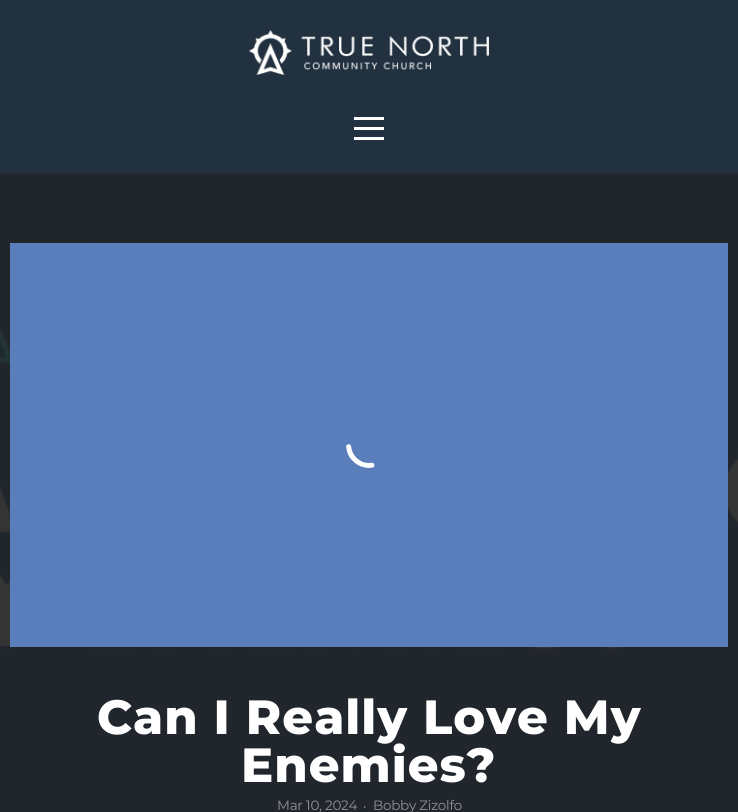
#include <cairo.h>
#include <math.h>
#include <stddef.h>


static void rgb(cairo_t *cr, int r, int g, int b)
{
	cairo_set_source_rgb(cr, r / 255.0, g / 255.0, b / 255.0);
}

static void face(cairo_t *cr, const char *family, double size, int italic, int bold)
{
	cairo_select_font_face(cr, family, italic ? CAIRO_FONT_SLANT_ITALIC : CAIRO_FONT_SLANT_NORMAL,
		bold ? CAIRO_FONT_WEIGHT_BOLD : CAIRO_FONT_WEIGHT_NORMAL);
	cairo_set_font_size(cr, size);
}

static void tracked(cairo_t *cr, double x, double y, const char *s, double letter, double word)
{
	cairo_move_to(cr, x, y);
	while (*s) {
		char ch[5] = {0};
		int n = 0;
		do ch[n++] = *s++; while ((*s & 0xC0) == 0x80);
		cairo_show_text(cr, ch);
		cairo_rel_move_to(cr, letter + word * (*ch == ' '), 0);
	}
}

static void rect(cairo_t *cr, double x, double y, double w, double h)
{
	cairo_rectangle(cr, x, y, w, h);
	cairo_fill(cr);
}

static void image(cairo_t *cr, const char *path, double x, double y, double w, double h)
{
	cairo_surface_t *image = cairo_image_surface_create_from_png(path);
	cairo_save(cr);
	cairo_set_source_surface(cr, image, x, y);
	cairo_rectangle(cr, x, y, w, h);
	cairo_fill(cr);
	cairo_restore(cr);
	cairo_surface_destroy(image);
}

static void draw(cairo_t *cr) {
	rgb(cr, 34, 49, 63);
	cairo_paint(cr);
	image(cr, "image0.png", 249, 30, 240, 45);
	rgb(cr, 255, 255, 255);
	rect(cr, 354, 117, 30, 3);
	rect(cr, 354, 127, 30, 3);
	rect(cr, 354, 137, 30, 3);
	image(cr, "image1.png", 0, 173, 738, 639);
	image(cr, "image2.png", 10, 243, 718, 404);
	face(cr, "Montserrat ExtraBold", 48, 0, 0);
	tracked(cr, 97, 734, "Can I Really Love My", 1, 0);
	tracked(cr, 241, 782, "Enemies?", 1, 0);
	face(cr, "Montserrat", 13.5, 0, 0);
	rgb(cr, 144, 147, 150);
	tracked(cr, 277, 810, "Mar 10, 2024", -0.25, 0);
	face(cr, "Montserrat", 11, 0, 0);
	tracked(cr, 363, 810, "•", -0.25, 0);
	face(cr, "Montserrat", 13.5, 0, 0);
	tracked(cr, 373, 810, "Bobby Zizolfo", -0.25, 0);
}

int main(void) {
	cairo_surface_t *surface = cairo_image_surface_create(CAIRO_FORMAT_RGB24, 738, 812);
	cairo_t *cr = cairo_create(surface);
	cairo_font_options_t *options = cairo_font_options_create();
	cairo_font_options_set_hint_metrics(options, CAIRO_HINT_METRICS_OFF);
	cairo_font_options_set_hint_style(options, CAIRO_HINT_STYLE_NONE);
	cairo_set_font_options(cr, options);
	cairo_set_miter_limit(cr, 4);
	draw(cr);
	cairo_surface_write_to_png(surface, "render.png");
	cairo_font_options_destroy(options);
	cairo_destroy(cr);
	cairo_surface_destroy(surface);
	return 0;
}
